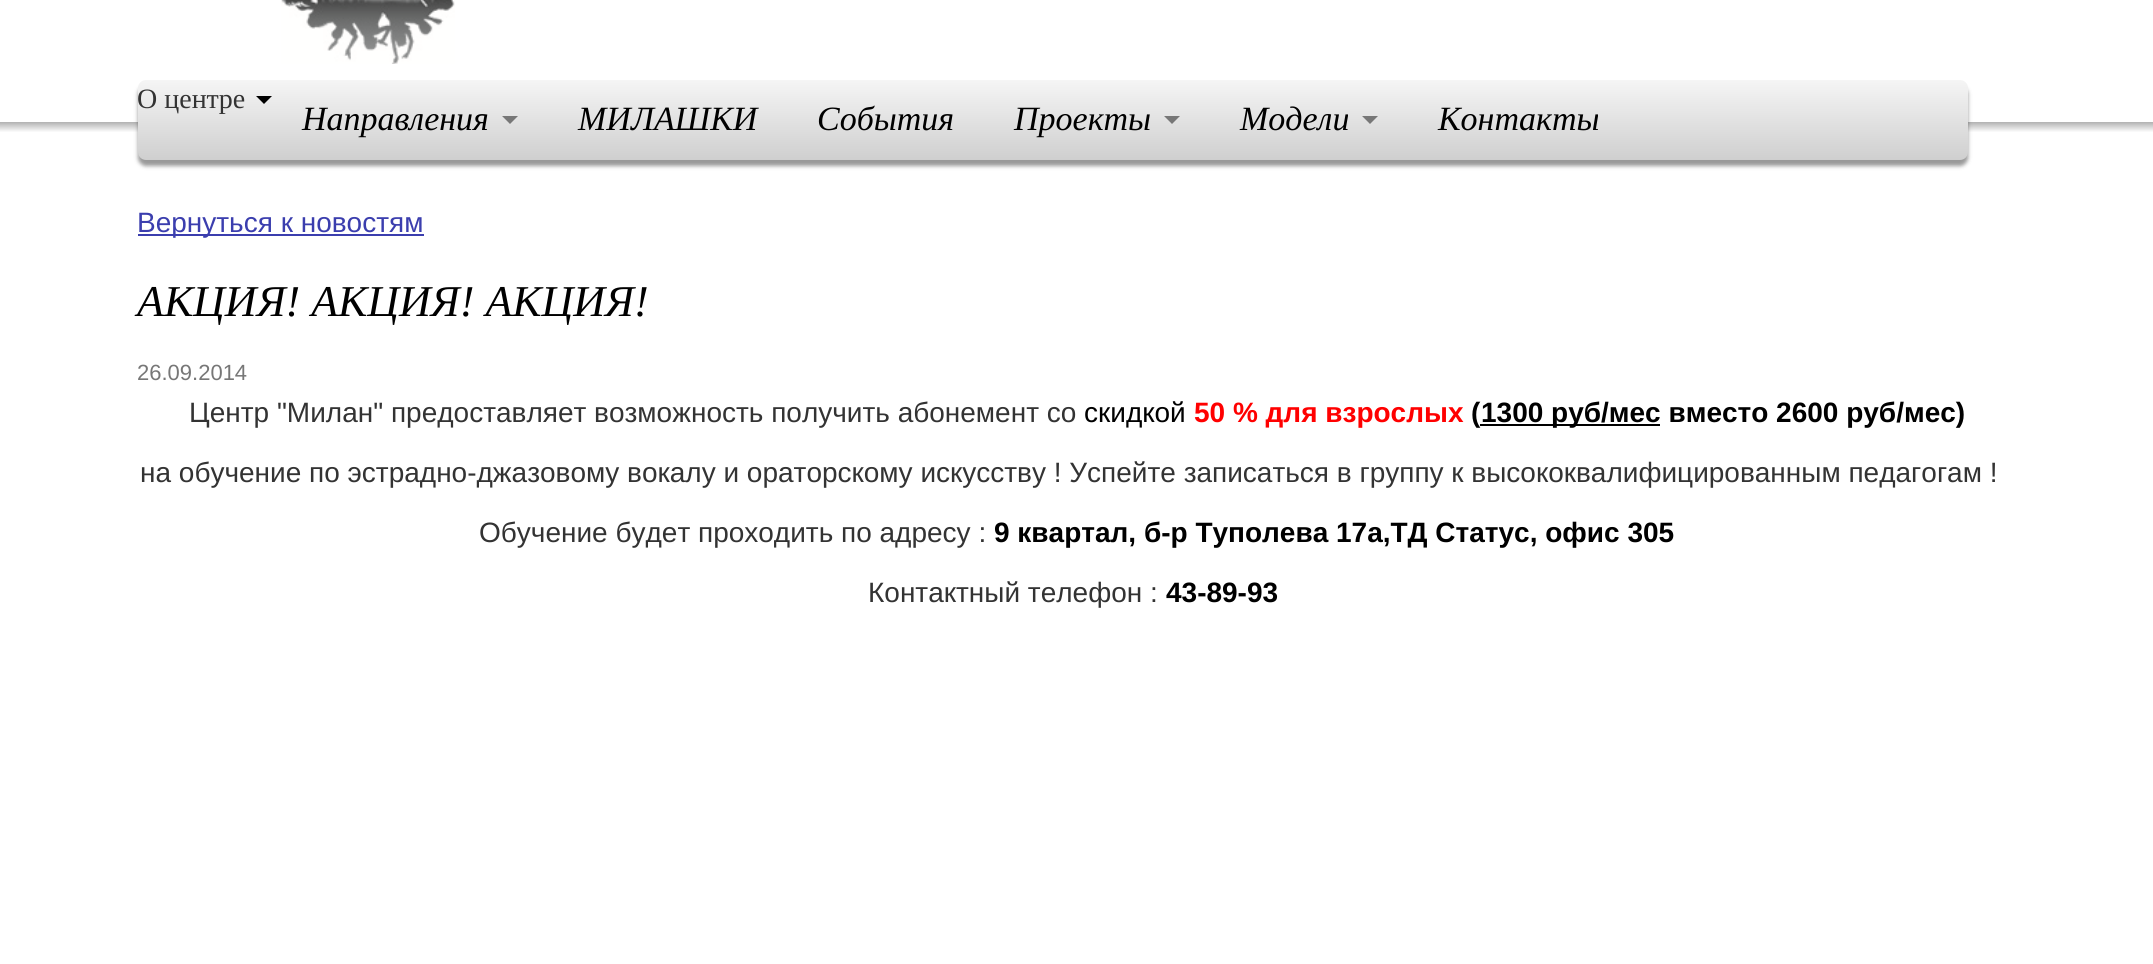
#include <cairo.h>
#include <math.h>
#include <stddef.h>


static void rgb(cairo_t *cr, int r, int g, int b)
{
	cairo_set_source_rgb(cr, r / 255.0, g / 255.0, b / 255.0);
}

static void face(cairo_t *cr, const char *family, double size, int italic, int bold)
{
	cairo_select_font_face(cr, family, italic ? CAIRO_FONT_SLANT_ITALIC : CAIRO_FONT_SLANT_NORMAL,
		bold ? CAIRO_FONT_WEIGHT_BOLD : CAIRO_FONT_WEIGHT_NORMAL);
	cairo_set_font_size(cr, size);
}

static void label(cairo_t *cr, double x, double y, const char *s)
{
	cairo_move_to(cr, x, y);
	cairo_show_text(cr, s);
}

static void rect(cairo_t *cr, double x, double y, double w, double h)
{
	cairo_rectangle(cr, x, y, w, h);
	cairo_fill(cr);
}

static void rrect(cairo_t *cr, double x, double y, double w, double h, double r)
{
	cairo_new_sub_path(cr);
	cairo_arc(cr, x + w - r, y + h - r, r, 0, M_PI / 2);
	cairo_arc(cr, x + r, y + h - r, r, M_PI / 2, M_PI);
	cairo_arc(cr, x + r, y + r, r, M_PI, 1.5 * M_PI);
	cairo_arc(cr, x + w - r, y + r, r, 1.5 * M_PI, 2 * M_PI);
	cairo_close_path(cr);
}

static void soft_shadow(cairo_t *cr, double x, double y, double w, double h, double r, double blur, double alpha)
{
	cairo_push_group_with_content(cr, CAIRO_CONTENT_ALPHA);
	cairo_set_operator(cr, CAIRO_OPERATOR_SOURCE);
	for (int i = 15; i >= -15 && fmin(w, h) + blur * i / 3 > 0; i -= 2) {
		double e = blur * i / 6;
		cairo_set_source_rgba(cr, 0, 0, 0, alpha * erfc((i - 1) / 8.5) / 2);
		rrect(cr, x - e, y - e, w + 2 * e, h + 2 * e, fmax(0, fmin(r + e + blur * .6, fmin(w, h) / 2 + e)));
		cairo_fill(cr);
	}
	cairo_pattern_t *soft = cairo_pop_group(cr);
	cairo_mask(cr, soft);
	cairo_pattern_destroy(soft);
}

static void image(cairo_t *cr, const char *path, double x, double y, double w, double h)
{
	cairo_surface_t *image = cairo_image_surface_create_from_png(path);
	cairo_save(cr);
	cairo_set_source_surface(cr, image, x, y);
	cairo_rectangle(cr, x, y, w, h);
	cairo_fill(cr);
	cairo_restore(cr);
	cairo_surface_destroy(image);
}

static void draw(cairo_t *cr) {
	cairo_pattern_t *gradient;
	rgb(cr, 255, 255, 255);
	cairo_paint(cr);
	image(cr, "image0.png", 281, 0, 174, 64);
	gradient = cairo_pattern_create_linear(1077, 122, 1077, 132);
	cairo_pattern_add_color_stop_rgba(gradient, 0, 0.694, 0.694, 0.694, 1);
	cairo_pattern_add_color_stop_rgba(gradient, 1, 0.992, 0.992, 0.992, 1);
	cairo_set_source(cr, gradient);
	cairo_pattern_destroy(gradient);
	rect(cr, 0, 122, 2153, 10);
	rgb(cr, 50, 50, 50);
	soft_shadow(cr, 138, 86, 1830, 80, 8, 2, 0.5);
	gradient = cairo_pattern_create_linear(1053, 80, 1053, 160);
	cairo_pattern_add_color_stop_rgba(gradient, 0, 0.961, 0.961, 0.961, 1);
	cairo_pattern_add_color_stop_rgba(gradient, 1, 0.812, 0.812, 0.812, 1);
	cairo_set_source(cr, gradient);
	cairo_pattern_destroy(gradient);
	rrect(cr, 138, 80, 1830, 80, 8);
	cairo_fill(cr);
	face(cr, "Liberation Serif", 28, 0, 0);
	rgb(cr, 51, 51, 51);
	label(cr, 137, 108, "О центре");
	rgb(cr, 0, 0, 0);
	cairo_new_path(cr);
	cairo_move_to(cr, 256, 96);
	cairo_line_to(cr, 272, 96);
	cairo_line_to(cr, 264, 104);
	cairo_close_path(cr);
	cairo_fill(cr);
	face(cr, "Liberation Serif", 34, 1, 0);
	label(cr, 302, 130, "Направления");
	rgb(cr, 119, 119, 119);
	cairo_new_path(cr);
	cairo_move_to(cr, 502, 116);
	cairo_line_to(cr, 518, 116);
	cairo_line_to(cr, 510, 124);
	cairo_close_path(cr);
	cairo_fill(cr);
	rgb(cr, 0, 0, 0);
	label(cr, 578, 130, "МИЛАШКИ");
	label(cr, 817, 130, "События");
	label(cr, 1014, 130, "Проекты");
	rgb(cr, 119, 119, 119);
	cairo_new_path(cr);
	cairo_move_to(cr, 1164, 116);
	cairo_line_to(cr, 1180, 116);
	cairo_line_to(cr, 1172, 124);
	cairo_close_path(cr);
	cairo_fill(cr);
	rgb(cr, 0, 0, 0);
	label(cr, 1240, 130, "Модели");
	rgb(cr, 119, 119, 119);
	cairo_new_path(cr);
	cairo_move_to(cr, 1362, 116);
	cairo_line_to(cr, 1378, 116);
	cairo_line_to(cr, 1370, 124);
	cairo_close_path(cr);
	cairo_fill(cr);
	rgb(cr, 0, 0, 0);
	label(cr, 1438, 130, "Контакты");
	rgb(cr, 59, 62, 174);
	rect(cr, 138, 234, 286, 2);
	face(cr, "Liberation Sans", 28, 0, 0);
	label(cr, 137, 232, "Вернуться к новостям");
	face(cr, "Liberation Serif", 44, 1, 0);
	rgb(cr, 0, 0, 0);
	label(cr, 137, 316, "АКЦИЯ! АКЦИЯ! АКЦИЯ!");
	face(cr, "Liberation Sans", 22, 0, 0);
	rgb(cr, 119, 119, 119);
	label(cr, 137, 380, "26.09.2014");
	face(cr, "Liberation Sans", 28, 0, 0);
	rgb(cr, 51, 51, 51);
	label(cr, 189, 422, "Центр \"Милан\" предоставляет возможность получить абонемент со");
	rgb(cr, 0, 0, 0);
	label(cr, 1084, 422, "скидкой");
	face(cr, "Liberation Sans", 28, 0, 1);
	rgb(cr, 255, 0, 0);
	label(cr, 1194, 422, "50 % для взрослых");
	rgb(cr, 0, 0, 0);
	label(cr, 1471, 422, "(");
	rect(cr, 1480, 424, 180, 2);
	label(cr, 1481, 422, "1300 руб/мес вместо 2600 руб/мес)");
	face(cr, "Liberation Sans", 28, 0, 0);
	rgb(cr, 51, 51, 51);
	label(cr, 140, 482, "на обучение по эстрадно-джазовому вокалу и ораторскому искусству ! Успейте записаться в группу к высококвалифицированным педагогам !");
	label(cr, 479, 542, "Обучение будет проходить по адресу :");
	face(cr, "Liberation Sans", 28, 0, 1);
	rgb(cr, 0, 0, 0);
	label(cr, 994, 542, "9 квартал, б-р Туполева 17а,ТД Статус, офис 305");
	face(cr, "Liberation Sans", 28, 0, 0);
	rgb(cr, 51, 51, 51);
	label(cr, 868, 602, "Контактный телефон :");
	face(cr, "Liberation Sans", 28, 0, 1);
	rgb(cr, 0, 0, 0);
	label(cr, 1166, 602, "43-89-93");
}

int main(void) {
	cairo_surface_t *surface = cairo_image_surface_create(CAIRO_FORMAT_RGB24, 2153, 964);
	cairo_t *cr = cairo_create(surface);
	cairo_font_options_t *options = cairo_font_options_create();
	cairo_font_options_set_hint_metrics(options, CAIRO_HINT_METRICS_OFF);
	cairo_font_options_set_hint_style(options, CAIRO_HINT_STYLE_NONE);
	cairo_set_font_options(cr, options);
	cairo_set_miter_limit(cr, 4);
	draw(cr);
	cairo_surface_write_to_png(surface, "render.png");
	cairo_font_options_destroy(options);
	cairo_destroy(cr);
	cairo_surface_destroy(surface);
	return 0;
}
